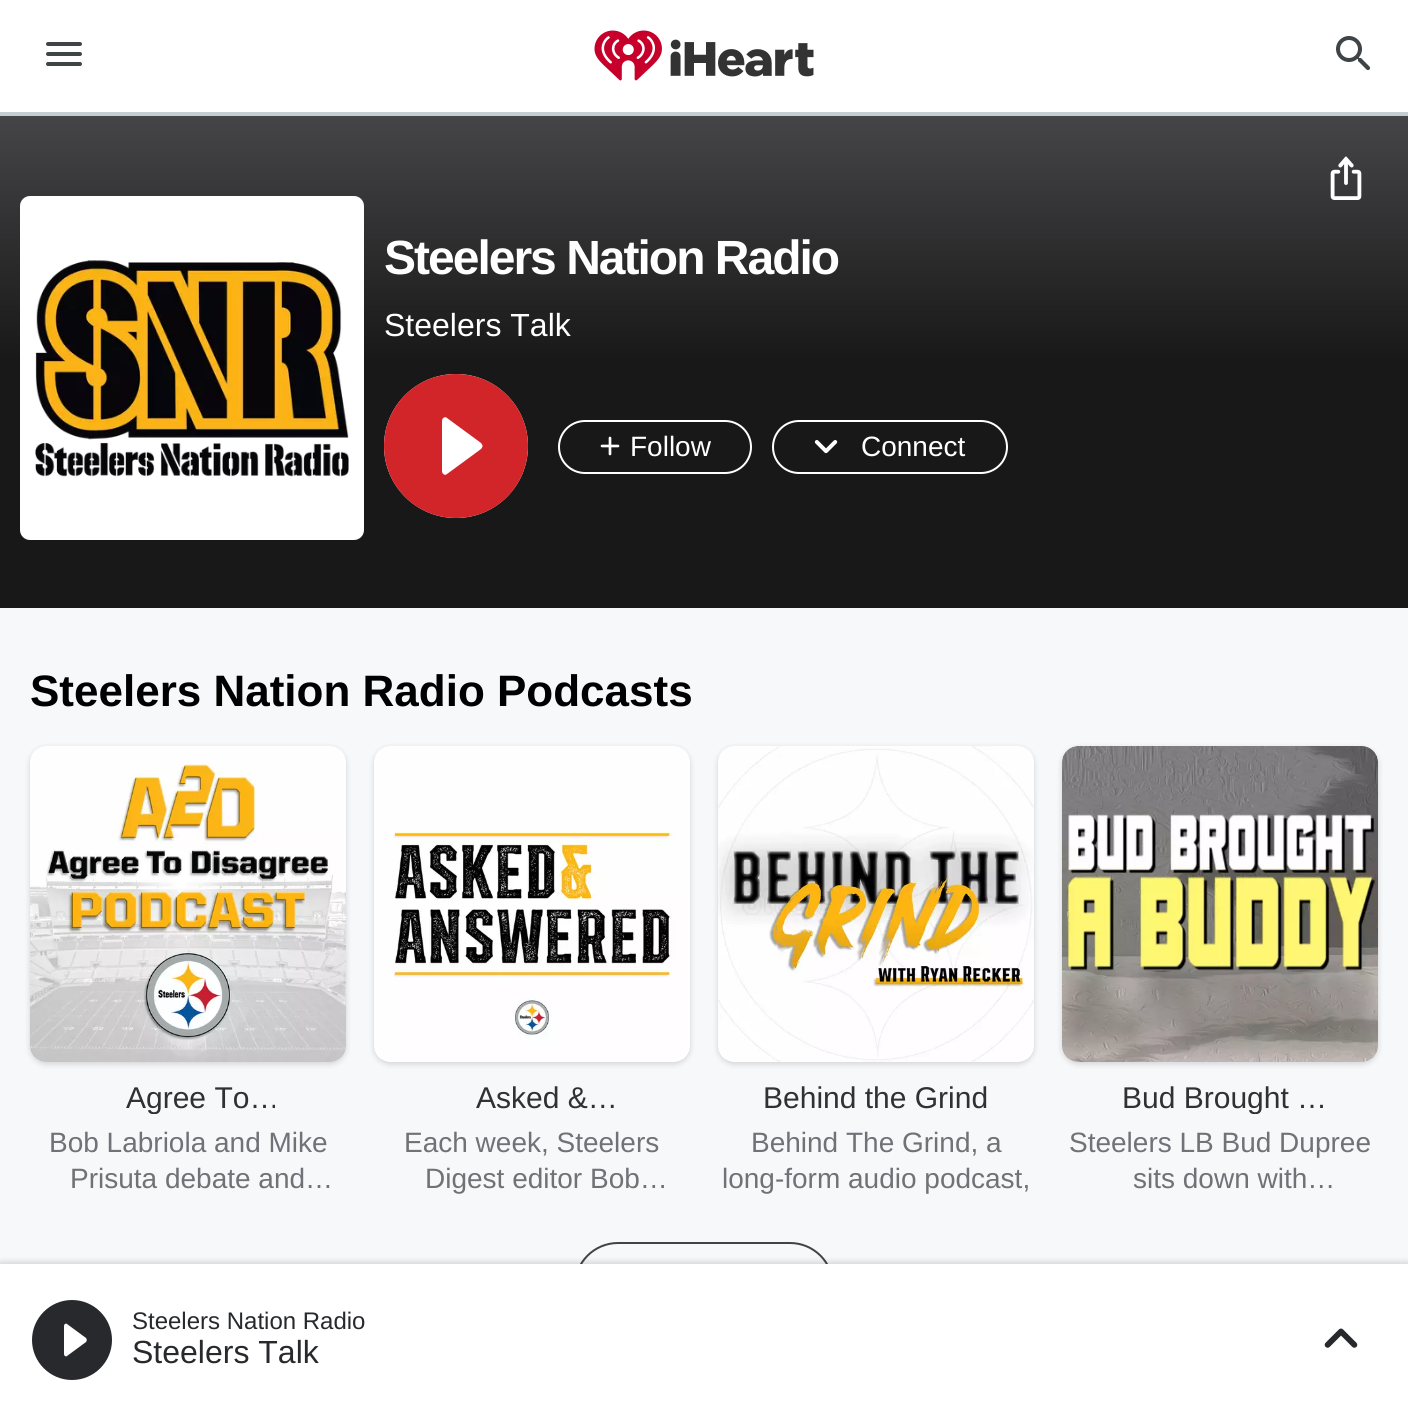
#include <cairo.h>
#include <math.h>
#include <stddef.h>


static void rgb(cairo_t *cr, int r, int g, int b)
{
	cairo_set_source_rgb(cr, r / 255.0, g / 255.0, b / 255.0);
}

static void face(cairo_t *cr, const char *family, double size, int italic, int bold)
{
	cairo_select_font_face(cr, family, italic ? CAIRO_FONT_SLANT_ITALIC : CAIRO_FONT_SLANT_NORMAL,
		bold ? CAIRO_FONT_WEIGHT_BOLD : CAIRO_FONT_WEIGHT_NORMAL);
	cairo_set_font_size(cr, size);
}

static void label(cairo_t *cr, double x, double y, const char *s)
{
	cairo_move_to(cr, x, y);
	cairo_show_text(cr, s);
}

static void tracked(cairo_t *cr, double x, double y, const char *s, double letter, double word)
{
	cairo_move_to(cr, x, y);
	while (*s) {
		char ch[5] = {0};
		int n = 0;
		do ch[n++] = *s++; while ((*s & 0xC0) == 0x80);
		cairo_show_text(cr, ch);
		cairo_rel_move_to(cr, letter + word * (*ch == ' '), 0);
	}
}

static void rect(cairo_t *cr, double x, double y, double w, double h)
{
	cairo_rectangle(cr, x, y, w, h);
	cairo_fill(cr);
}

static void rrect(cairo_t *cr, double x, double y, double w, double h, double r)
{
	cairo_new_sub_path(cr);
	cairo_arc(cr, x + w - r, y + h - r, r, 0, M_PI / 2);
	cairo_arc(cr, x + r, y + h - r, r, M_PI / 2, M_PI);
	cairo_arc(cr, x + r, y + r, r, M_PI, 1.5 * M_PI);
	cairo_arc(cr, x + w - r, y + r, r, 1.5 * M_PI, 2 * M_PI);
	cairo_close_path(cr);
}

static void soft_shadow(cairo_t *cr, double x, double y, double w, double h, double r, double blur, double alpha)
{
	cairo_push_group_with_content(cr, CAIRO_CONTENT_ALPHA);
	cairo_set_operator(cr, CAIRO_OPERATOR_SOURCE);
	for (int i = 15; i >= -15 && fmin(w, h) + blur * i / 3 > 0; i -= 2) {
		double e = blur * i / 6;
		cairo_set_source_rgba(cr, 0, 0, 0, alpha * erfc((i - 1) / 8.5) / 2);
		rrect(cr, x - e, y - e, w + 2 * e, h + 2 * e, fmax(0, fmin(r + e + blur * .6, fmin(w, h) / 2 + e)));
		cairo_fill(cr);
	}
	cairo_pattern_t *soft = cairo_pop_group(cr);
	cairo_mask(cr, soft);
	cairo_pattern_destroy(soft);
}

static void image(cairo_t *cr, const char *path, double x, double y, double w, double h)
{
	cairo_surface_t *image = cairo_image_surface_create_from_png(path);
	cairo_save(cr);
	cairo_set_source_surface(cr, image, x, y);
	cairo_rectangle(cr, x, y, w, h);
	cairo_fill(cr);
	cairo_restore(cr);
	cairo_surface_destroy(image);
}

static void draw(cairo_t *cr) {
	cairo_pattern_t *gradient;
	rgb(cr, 255, 255, 255);
	cairo_paint(cr);
	rgb(cr, 197, 205, 210);
	rect(cr, 0, 112, 1408, 4);
	image(cr, "image0.png", 46, 42, 36, 24);
	image(cr, "image1.png", 594, 30, 220, 51);
	image(cr, "image2.png", 1336, 36, 35, 35);
	gradient = cairo_pattern_create_linear(704, 116, 704, 608);
	cairo_pattern_add_color_stop_rgba(gradient, 0, 0.271, 0.271, 0.282, 1);
	cairo_pattern_add_color_stop_rgba(gradient, 0.5, 0.094, 0.094, 0.094, 1);
	cairo_set_source(cr, gradient);
	cairo_pattern_destroy(gradient);
	rect(cr, 0, 116, 1408, 492);
	rgb(cr, 255, 255, 255);
	rrect(cr, 20, 196, 344, 344, 10);
	cairo_fill(cr);
	image(cr, "image3.png", 35, 260, 314, 217);
	face(cr, "Liberation Sans", 48, 0, 1);
	tracked(cr, 384, 274, "Steelers Nation Radio", -2, 0);
	face(cr, "Liberation Sans", 32, 0, 0);
	label(cr, 384, 336, "Steelers Talk");
	cairo_new_path(cr);
	cairo_arc(cr, 456, 446, 72, 0, 2 * M_PI);
	cairo_fill(cr);
	rgb(cr, 210, 37, 42);
	cairo_new_path(cr);
	cairo_move_to(cr, 456, 374);
	cairo_curve_to(cr, 416, 374, 384, 406, 384, 446);
	cairo_curve_to(cr, 384, 486, 416, 518, 456, 518);
	cairo_curve_to(cr, 496, 518, 528, 486, 528, 446);
	cairo_curve_to(cr, 528, 406, 496, 374, 456, 374);
	cairo_close_path(cr);
	cairo_move_to(cr, 442, 471);
	cairo_line_to(cr, 442, 421);
	cairo_curve_to(cr, 442, 418, 445, 416, 447, 418);
	cairo_line_to(cr, 481, 443);
	cairo_curve_to(cr, 483, 445, 483, 447, 481, 449);
	cairo_line_to(cr, 447, 474);
	cairo_curve_to(cr, 445, 476, 442, 474, 442, 471);
	cairo_close_path(cr);
	cairo_fill(cr);
	rrect(cr, 559, 421, 192, 52, 26);
	rgb(cr, 255, 255, 255);
	cairo_stroke(cr);
	image(cr, "image4.png", 600, 436, 20, 20);
	face(cr, "Liberation Sans", 28, 0, 0);
	label(cr, 630, 456, "Follow");
	image(cr, "image5.png", 1330, 156, 32, 44);
	rrect(cr, 773, 421, 234, 52, 26);
	cairo_stroke(cr);
	image(cr, "image6.png", 814, 440, 24, 14);
	label(cr, 861, 456, "Connect");
	rgb(cr, 246, 248, 249);
	rect(cr, 0, 608, 1408, 656);
	face(cr, "Liberation Sans", 44, 0, 1);
	rgb(cr, 0, 0, 0);
	label(cr, 30, 706, "Steelers Nation Radio Podcasts");
	rgb(cr, 0, 0, 0);
	soft_shadow(cr, 30, 748, 316, 316, 16, 3, 0.15);
	image(cr, "image7.png", 30, 746, 316, 316);
	cairo_save(cr);
	cairo_rectangle(cr, 76, 1080, 226, 34);
	cairo_clip(cr);
	face(cr, "Liberation Sans", 30, 0, 0);
	rgb(cr, 47, 49, 51);
	label(cr, 126, 1108, "Agree To…");
	cairo_restore(cr);
	face(cr, "Liberation Sans", 28, 0, 0);
	rgb(cr, 113, 114, 119);
	label(cr, 49, 1152, "Bob Labriola and Mike");
	label(cr, 70, 1188, "Prisuta debate and…");
	rgb(cr, 0, 0, 0);
	soft_shadow(cr, 374, 748, 316, 316, 16, 3, 0.15);
	image(cr, "image8.png", 374, 746, 316, 316);
	face(cr, "Liberation Sans", 30, 0, 0);
	rgb(cr, 47, 49, 51);
	label(cr, 476, 1108, "Asked &…");
	face(cr, "Liberation Sans", 28, 0, 0);
	rgb(cr, 113, 114, 119);
	label(cr, 404, 1152, "Each week, Steelers");
	label(cr, 425, 1188, "Digest editor Bob…");
	rgb(cr, 0, 0, 0);
	soft_shadow(cr, 718, 748, 316, 316, 16, 3, 0.15);
	image(cr, "image9.png", 718, 746, 316, 316);
	face(cr, "Liberation Sans", 30, 0, 0);
	rgb(cr, 47, 49, 51);
	label(cr, 763, 1108, "Behind the Grind");
	face(cr, "Liberation Sans", 28, 0, 0);
	rgb(cr, 113, 114, 119);
	label(cr, 751, 1152, "Behind The Grind, a");
	label(cr, 722, 1188, "long-form audio podcast,");
	rgb(cr, 0, 0, 0);
	soft_shadow(cr, 1062, 748, 316, 316, 16, 3, 0.15);
	image(cr, "image10.png", 1062, 746, 316, 316);
	cairo_save(cr);
	cairo_rectangle(cr, 1108, 1080, 226, 34);
	cairo_clip(cr);
	face(cr, "Liberation Sans", 30, 0, 0);
	rgb(cr, 47, 49, 51);
	label(cr, 1122, 1108, "Bud Brought …");
	cairo_restore(cr);
	rgb(cr, 113, 114, 119);
	label(cr, 1069, 1152, "Steelers LB Bud Dupree");
	label(cr, 1133, 1188, "sits down with…");
	rrect(cr, 575, 1243, 258, 86, 43);
	rgb(cr, 63, 68, 71);
	cairo_stroke(cr);
	rgb(cr, 0, 0, 0);
	soft_shadow(cr, 0, 1262, 1408, 150, 0, 3, 0.15);
	rgb(cr, 255, 255, 255);
	rect(cr, 0, 1264, 1408, 150);
	rgb(cr, 39, 41, 45);
	cairo_new_path(cr);
	cairo_move_to(cr, 72, 1300);
	cairo_curve_to(cr, 50, 1300, 32, 1318, 32, 1340);
	cairo_curve_to(cr, 32, 1362, 50, 1380, 72, 1380);
	cairo_curve_to(cr, 94, 1380, 112, 1362, 112, 1340);
	cairo_curve_to(cr, 112, 1318, 94, 1300, 72, 1300);
	cairo_close_path(cr);
	cairo_move_to(cr, 64, 1354);
	cairo_line_to(cr, 64, 1326);
	cairo_curve_to(cr, 64, 1324, 66, 1323, 67, 1324);
	cairo_line_to(cr, 86, 1338);
	cairo_curve_to(cr, 87, 1339, 87, 1341, 86, 1342);
	cairo_line_to(cr, 67, 1356);
	cairo_curve_to(cr, 66, 1357, 64, 1356, 64, 1354);
	cairo_close_path(cr);
	cairo_fill(cr);
	face(cr, "Liberation Sans", 24, 0, 0);
	label(cr, 132, 1329, "Steelers Nation Radio");
	face(cr, "Liberation Sans", 32, 0, 0);
	label(cr, 132, 1363, "Steelers Talk");
	image(cr, "image11.png", 1324, 1328, 34, 20);
}

int main(void) {
	cairo_surface_t *surface = cairo_image_surface_create(CAIRO_FORMAT_RGB24, 1408, 1414);
	cairo_t *cr = cairo_create(surface);
	cairo_font_options_t *options = cairo_font_options_create();
	cairo_font_options_set_hint_metrics(options, CAIRO_HINT_METRICS_OFF);
	cairo_font_options_set_hint_style(options, CAIRO_HINT_STYLE_NONE);
	cairo_set_font_options(cr, options);
	cairo_set_miter_limit(cr, 4);
	draw(cr);
	cairo_surface_write_to_png(surface, "render.png");
	cairo_font_options_destroy(options);
	cairo_destroy(cr);
	cairo_surface_destroy(surface);
	return 0;
}
